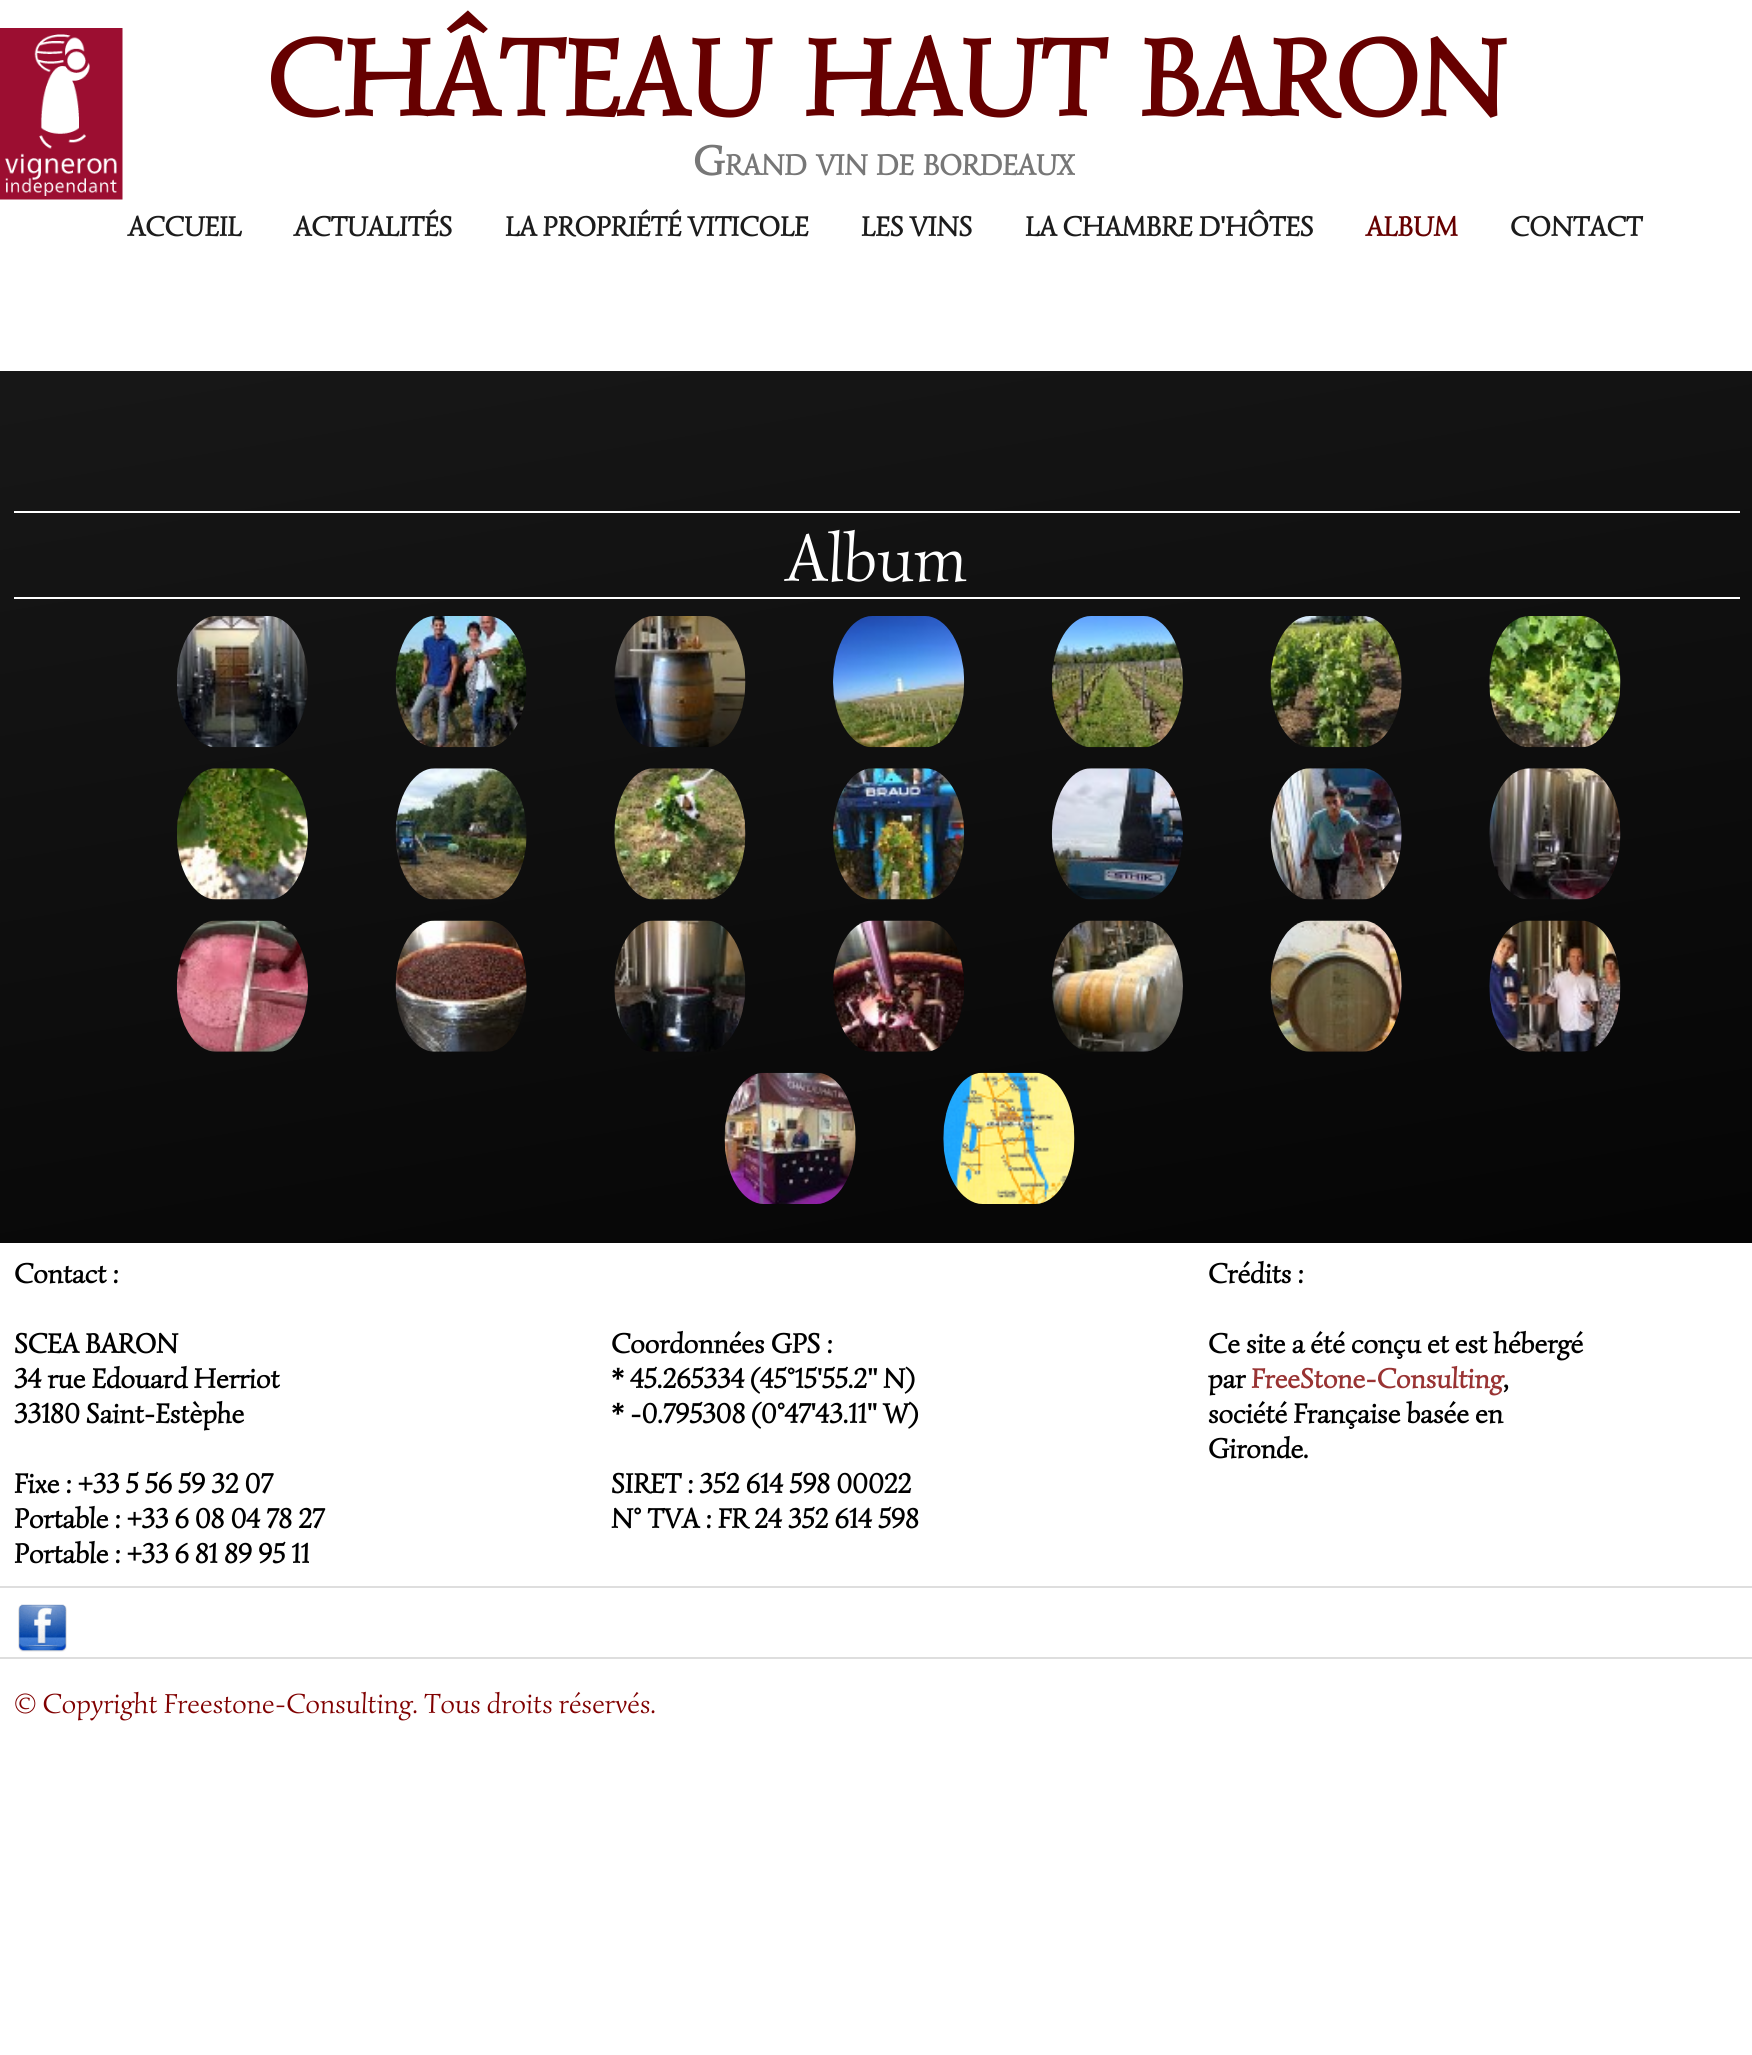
#include <cairo.h>
#include <math.h>
#include <stddef.h>


static void rgb(cairo_t *cr, int r, int g, int b)
{
	cairo_set_source_rgb(cr, r / 255.0, g / 255.0, b / 255.0);
}

static void face(cairo_t *cr, const char *family, double size, int italic, int bold)
{
	cairo_select_font_face(cr, family, italic ? CAIRO_FONT_SLANT_ITALIC : CAIRO_FONT_SLANT_NORMAL,
		bold ? CAIRO_FONT_WEIGHT_BOLD : CAIRO_FONT_WEIGHT_NORMAL);
	cairo_set_font_size(cr, size);
}

static void label(cairo_t *cr, double x, double y, const char *s)
{
	cairo_move_to(cr, x, y);
	cairo_show_text(cr, s);
}

static void rect(cairo_t *cr, double x, double y, double w, double h)
{
	cairo_rectangle(cr, x, y, w, h);
	cairo_fill(cr);
}

static void image(cairo_t *cr, const char *path, double x, double y, double w, double h)
{
	cairo_surface_t *image = cairo_image_surface_create_from_png(path);
	cairo_save(cr);
	cairo_set_source_surface(cr, image, x, y);
	cairo_rectangle(cr, x, y, w, h);
	cairo_fill(cr);
	cairo_restore(cr);
	cairo_surface_destroy(image);
}

static void draw(cairo_t *cr) {
	cairo_pattern_t *gradient;
	rgb(cr, 255, 255, 255);
	cairo_paint(cr);
	image(cr, "image0.png", 0, 28, 123, 172);
	face(cr, "Simonetta", 110.25, 0, 1);
	rgb(cr, 102, 0, 0);
	label(cr, 266, 116, "CHÂTEAU");
	label(cr, 803, 116, "HAUT");
	label(cr, 1139, 116, "BARON");
	face(cr, "Simonetta", 42, 0, 1);
	rgb(cr, 119, 119, 119);
	label(cr, 693, 175, "G");
	face(cr, "Simonetta", 29.5, 0, 1);
	label(cr, 725, 175, "RAND");
	label(cr, 816, 175, "VIN");
	label(cr, 876, 175, "DE");
	label(cr, 923, 175, "BORDEAUX");
	face(cr, "Simonetta", 28, 0, 1);
	rgb(cr, 28, 28, 28);
	label(cr, 128, 236, "ACCUEIL");
	label(cr, 294, 236, "ACTUALITÉS");
	label(cr, 505, 236, "LA PROPRIÉTÉ VITICOLE");
	label(cr, 861, 236, "LES VINS");
	label(cr, 1025, 236, "LA CHAMBRE D'HÔTES");
	rgb(cr, 102, 0, 0);
	label(cr, 1366, 236, "ALBUM");
	rgb(cr, 28, 28, 28);
	label(cr, 1510, 236, "CONTACT");
	gradient = cairo_pattern_create_linear(736, -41, 1017, 1655);
	cairo_pattern_add_color_stop_rgba(gradient, 0, 0.11, 0.11, 0.11, 1);
	cairo_pattern_add_color_stop_rgba(gradient, 1, 0, 0, 0, 1);
	cairo_set_source(cr, gradient);
	cairo_pattern_destroy(gradient);
	rect(cr, 0, 371, 1752, 872);
	rgb(cr, 255, 255, 255);
	rect(cr, 14, 511, 1726, 2);
	rect(cr, 14, 597, 1726, 2);
	face(cr, "Simonetta", 67.5, 0, 0);
	label(cr, 786, 581, "Album");
	image(cr, "image1.png", 177, 616, 131, 132);
	image(cr, "image2.png", 395, 616, 132, 132);
	image(cr, "image3.png", 614, 616, 132, 132);
	image(cr, "image4.png", 833, 616, 132, 132);
	image(cr, "image5.png", 1051, 616, 132, 132);
	image(cr, "image6.png", 1270, 616, 132, 132);
	image(cr, "image7.png", 1489, 616, 132, 132);
	image(cr, "image8.png", 177, 768, 131, 132);
	image(cr, "image9.png", 395, 768, 132, 132);
	image(cr, "image10.png", 614, 768, 132, 132);
	image(cr, "image11.png", 833, 768, 132, 132);
	image(cr, "image12.png", 1051, 768, 132, 132);
	image(cr, "image13.png", 1270, 768, 132, 132);
	image(cr, "image14.png", 1489, 768, 132, 132);
	image(cr, "image15.png", 176, 920, 132, 132);
	image(cr, "image16.png", 395, 920, 132, 132);
	image(cr, "image17.png", 614, 920, 132, 132);
	image(cr, "image18.png", 833, 920, 131, 132);
	image(cr, "image19.png", 1052, 920, 131, 132);
	image(cr, "image20.png", 1270, 920, 132, 132);
	image(cr, "image21.png", 1489, 920, 132, 132);
	image(cr, "image22.png", 724, 1072, 132, 132);
	image(cr, "image23.png", 943, 1072, 132, 132);
	face(cr, "Simonetta", 28, 0, 1);
	rgb(cr, 0, 0, 0);
	label(cr, 14, 1283, "Contact :");
	label(cr, 14, 1353, "SCEA BARON");
	label(cr, 14, 1388, "34 rue Edouard Herriot");
	label(cr, 14, 1423, "33180 Saint-Estèphe");
	label(cr, 14, 1493, "Fixe : +33 5 56 59 32 07");
	label(cr, 14, 1528, "Portable : +33 6 08 04 78 27");
	label(cr, 14, 1563, "Portable : +33 6 81 89 95 11");
	label(cr, 611, 1353, "Coordonnées GPS :");
	label(cr, 611, 1388, "* 45.265334 (45°15'55.2\" N)");
	label(cr, 611, 1423, "* -0.795308 (0°47'43.11\" W)");
	label(cr, 611, 1493, "SIRET : 352 614 598 00022");
	label(cr, 611, 1528, "N° TVA : FR 24 352 614 598");
	label(cr, 1208, 1283, "Crédits :");
	label(cr, 1208, 1353, "Ce site a été conçu et est hébergé");
	label(cr, 1208, 1388, "par");
	rgb(cr, 153, 51, 51);
	label(cr, 1251, 1388, "FreeStone-Consulting");
	rgb(cr, 0, 0, 0);
	label(cr, 1503, 1388, ",");
	label(cr, 1208, 1423, "société Française basée en");
	label(cr, 1208, 1458, "Gironde.");
	rgb(cr, 222, 222, 222);
	rect(cr, 0, 1586, 1752, 2);
	rect(cr, 0, 1657, 1752, 2);
	image(cr, "image24.png", 18, 1604, 49, 48);
	face(cr, "Simonetta", 28, 0, 0);
	rgb(cr, 128, 0, 0);
	label(cr, 14, 1713, "© Copyright Freestone-Consulting. Tous droits réservés.");
}

int main(void) {
	cairo_surface_t *surface = cairo_image_surface_create(CAIRO_FORMAT_RGB24, 1752, 2055);
	cairo_t *cr = cairo_create(surface);
	cairo_font_options_t *options = cairo_font_options_create();
	cairo_font_options_set_hint_metrics(options, CAIRO_HINT_METRICS_OFF);
	cairo_font_options_set_hint_style(options, CAIRO_HINT_STYLE_NONE);
	cairo_set_font_options(cr, options);
	cairo_set_miter_limit(cr, 4);
	draw(cr);
	cairo_surface_write_to_png(surface, "render.png");
	cairo_font_options_destroy(options);
	cairo_destroy(cr);
	cairo_surface_destroy(surface);
	return 0;
}
